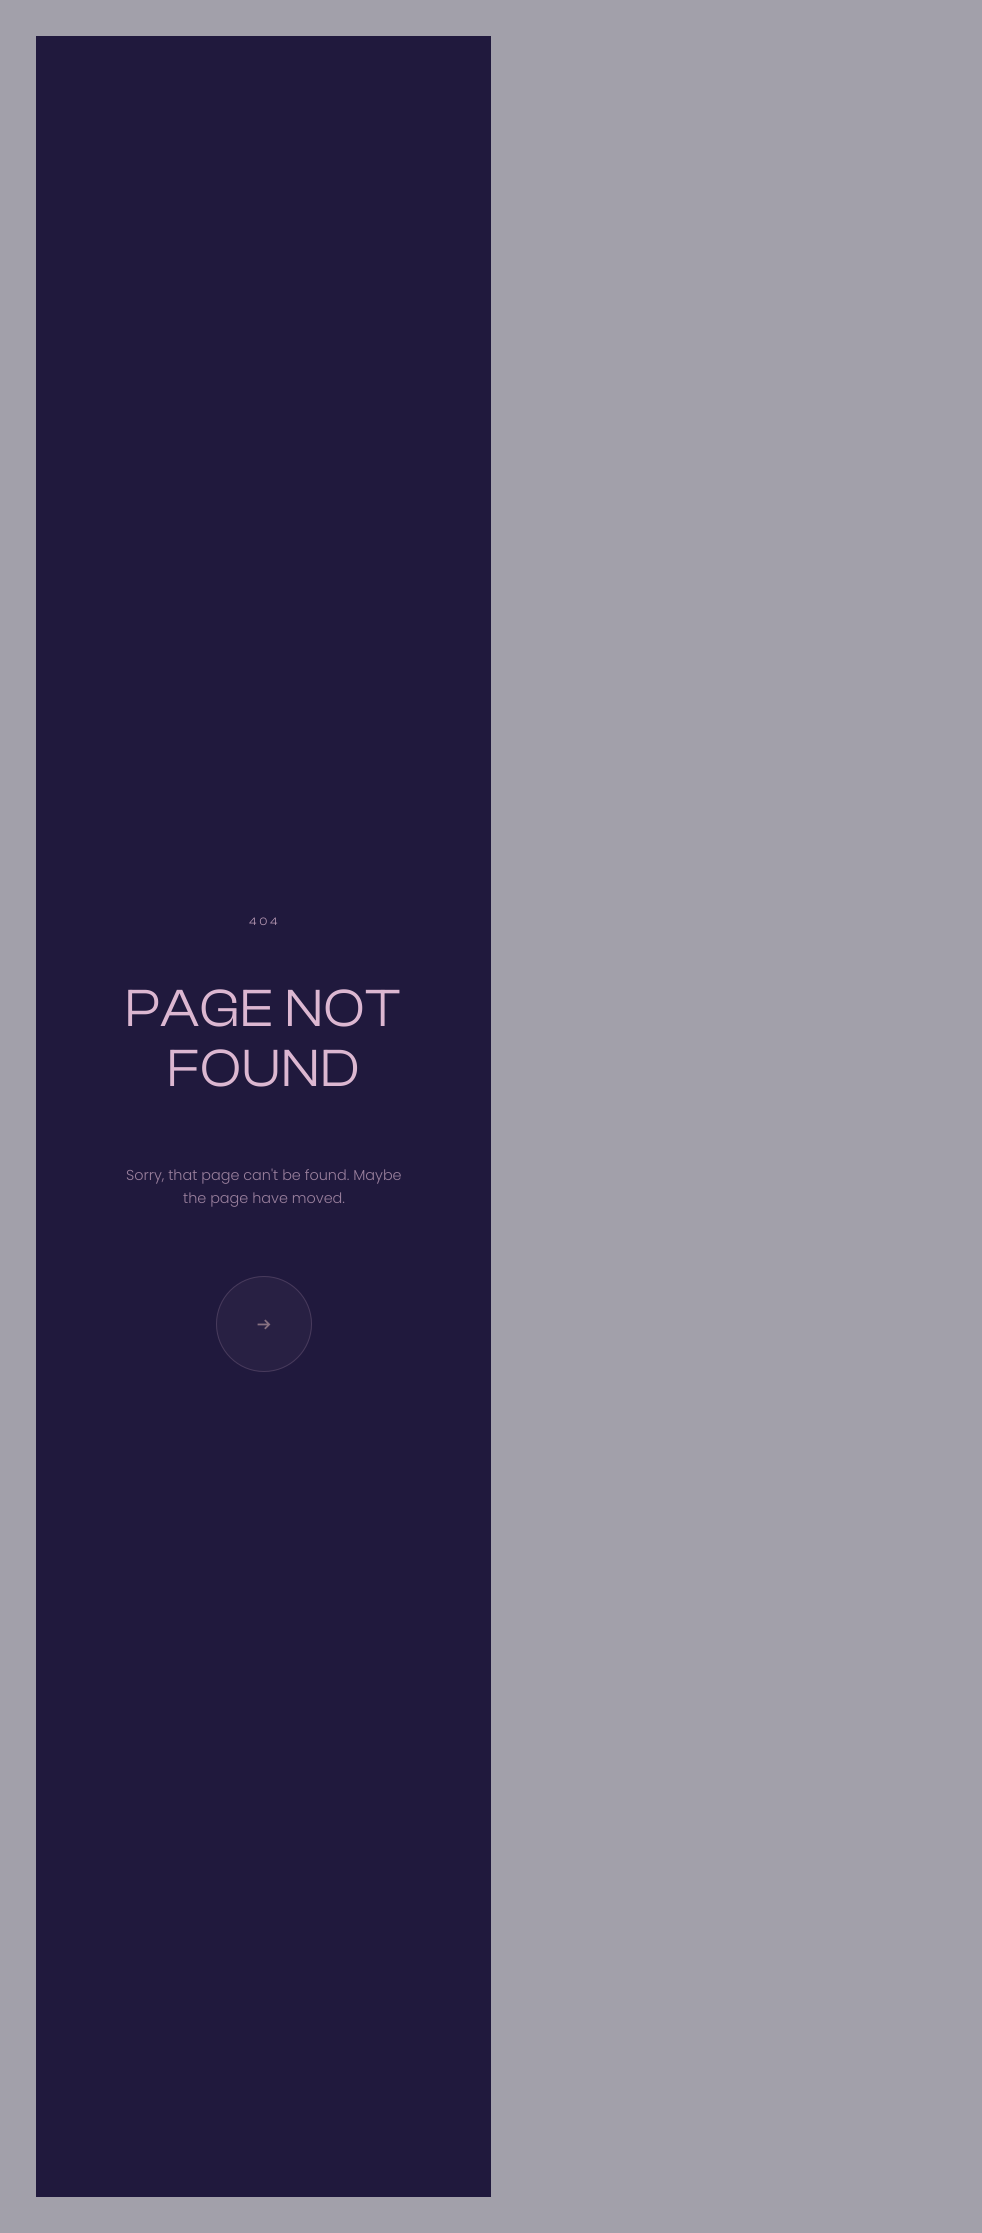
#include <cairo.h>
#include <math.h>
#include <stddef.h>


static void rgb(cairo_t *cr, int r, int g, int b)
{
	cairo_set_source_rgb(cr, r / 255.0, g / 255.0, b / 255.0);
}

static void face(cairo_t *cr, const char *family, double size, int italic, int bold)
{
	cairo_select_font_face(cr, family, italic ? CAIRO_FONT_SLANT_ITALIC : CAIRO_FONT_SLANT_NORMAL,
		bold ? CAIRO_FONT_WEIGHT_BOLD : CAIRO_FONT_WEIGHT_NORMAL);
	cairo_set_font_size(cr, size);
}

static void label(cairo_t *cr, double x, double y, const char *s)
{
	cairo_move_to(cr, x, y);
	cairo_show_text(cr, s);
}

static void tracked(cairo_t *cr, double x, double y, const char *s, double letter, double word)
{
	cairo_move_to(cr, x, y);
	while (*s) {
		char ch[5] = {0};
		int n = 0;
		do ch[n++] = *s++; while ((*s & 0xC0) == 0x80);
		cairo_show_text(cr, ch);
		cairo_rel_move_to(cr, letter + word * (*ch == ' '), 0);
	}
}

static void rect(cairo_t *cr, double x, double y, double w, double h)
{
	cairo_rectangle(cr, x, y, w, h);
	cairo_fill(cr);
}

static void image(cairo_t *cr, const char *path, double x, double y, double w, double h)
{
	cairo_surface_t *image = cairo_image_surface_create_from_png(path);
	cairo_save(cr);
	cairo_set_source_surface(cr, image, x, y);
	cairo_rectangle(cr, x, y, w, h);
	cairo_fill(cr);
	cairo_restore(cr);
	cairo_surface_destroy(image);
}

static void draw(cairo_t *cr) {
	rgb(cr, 162, 160, 170);
	cairo_paint(cr);
	rgb(cr, 32, 25, 61);
	rect(cr, 36, 36, 455, 2161);
	face(cr, "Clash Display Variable", 11, 0, 0);
	rgb(cr, 186, 155, 182);
	tracked(cr, 249, 925, "404", 3, 0);
	face(cr, "Clash Display Variable", 54, 0, 0);
	rgb(cr, 220, 183, 209);
	tracked(cr, 125, 1026, "PAGE NOT", 1, 0);
	tracked(cr, 167, 1086, "FOUND", 1, 0);
	face(cr, "Poppins Light", 14.4, 0, 0);
	rgb(cr, 154, 128, 157);
	label(cr, 126, 1180, "Sorry, that page can't be found. Maybe");
	label(cr, 183, 1203, "the page have moved.");
	rgb(cr, 40, 32, 67);
	cairo_new_path(cr);
	cairo_arc(cr, 264, 1324, 48, 0, 2 * M_PI);
	cairo_fill(cr);
	cairo_arc(cr, 264, 1324, 47.5, 0, 2 * M_PI);
	cairo_set_source_rgba(cr, 0.576, 0.478, 0.592, 0.3);
	cairo_set_line_width(cr, 1);
	cairo_stroke(cr);
	image(cr, "image0.png", 257, 1319, 14, 11);
}

int main(void) {
	cairo_surface_t *surface = cairo_image_surface_create(CAIRO_FORMAT_RGB24, 982, 2233);
	cairo_t *cr = cairo_create(surface);
	cairo_font_options_t *options = cairo_font_options_create();
	cairo_font_options_set_hint_metrics(options, CAIRO_HINT_METRICS_OFF);
	cairo_font_options_set_hint_style(options, CAIRO_HINT_STYLE_NONE);
	cairo_set_font_options(cr, options);
	cairo_set_miter_limit(cr, 4);
	draw(cr);
	cairo_surface_write_to_png(surface, "render.png");
	cairo_font_options_destroy(options);
	cairo_destroy(cr);
	cairo_surface_destroy(surface);
	return 0;
}
